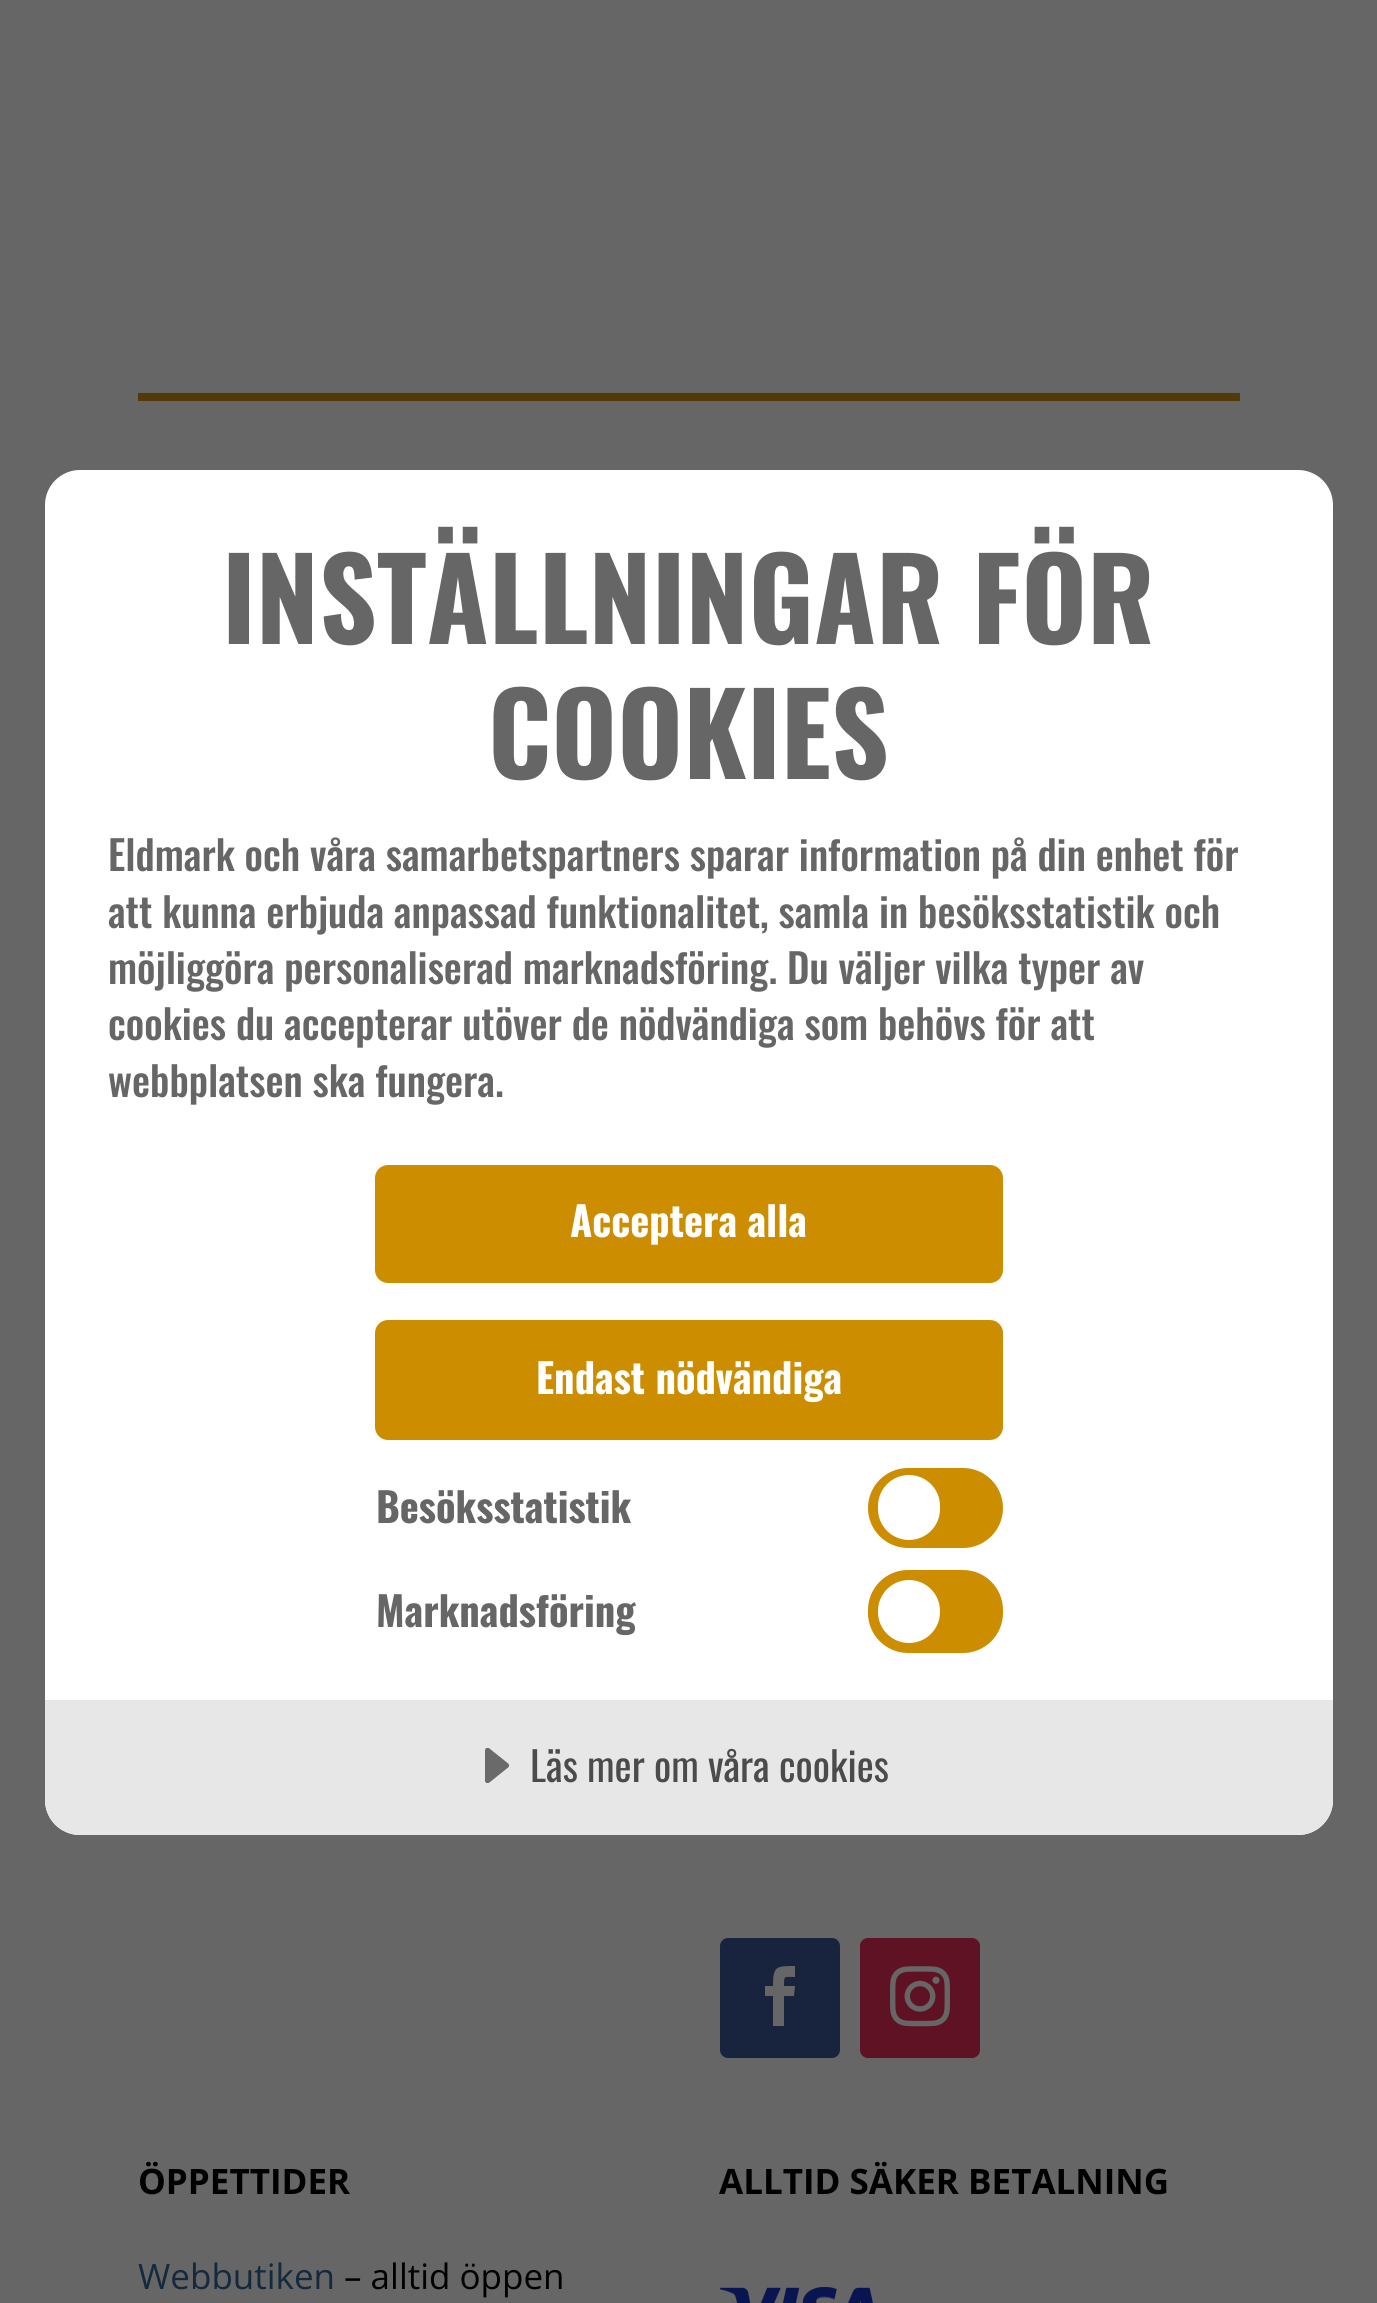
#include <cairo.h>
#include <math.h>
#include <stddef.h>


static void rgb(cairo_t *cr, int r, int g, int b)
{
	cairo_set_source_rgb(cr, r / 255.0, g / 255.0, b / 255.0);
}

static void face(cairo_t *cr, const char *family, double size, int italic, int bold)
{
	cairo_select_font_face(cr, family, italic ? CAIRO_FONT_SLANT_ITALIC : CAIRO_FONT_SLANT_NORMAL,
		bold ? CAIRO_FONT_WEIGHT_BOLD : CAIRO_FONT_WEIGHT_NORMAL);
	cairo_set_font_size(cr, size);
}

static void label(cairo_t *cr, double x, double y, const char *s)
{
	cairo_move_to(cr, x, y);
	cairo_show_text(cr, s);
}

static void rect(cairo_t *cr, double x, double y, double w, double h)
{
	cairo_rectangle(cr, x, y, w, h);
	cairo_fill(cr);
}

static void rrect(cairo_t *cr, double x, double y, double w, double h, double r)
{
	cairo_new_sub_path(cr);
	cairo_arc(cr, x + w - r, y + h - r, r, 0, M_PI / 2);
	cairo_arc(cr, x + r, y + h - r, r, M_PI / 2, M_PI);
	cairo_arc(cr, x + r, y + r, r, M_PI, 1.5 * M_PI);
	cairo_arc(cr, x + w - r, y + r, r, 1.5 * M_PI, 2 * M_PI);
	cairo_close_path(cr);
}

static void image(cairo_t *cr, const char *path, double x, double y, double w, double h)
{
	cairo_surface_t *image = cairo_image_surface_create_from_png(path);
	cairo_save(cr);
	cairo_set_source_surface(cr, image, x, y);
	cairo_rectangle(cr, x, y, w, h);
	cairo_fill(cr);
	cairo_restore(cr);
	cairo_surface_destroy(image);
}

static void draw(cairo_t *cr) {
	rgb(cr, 102, 102, 102);
	cairo_paint(cr);
	rgb(cr, 255, 255, 255);
	rrect(cr, 45, 470, 1288, 1365, 35);
	cairo_fill(cr);
	face(cr, "Oswald", 112.5, 0, 1);
	rgb(cr, 102, 102, 102);
	label(cr, 222, 644, "INSTÄLLNINGAR FÖR");
	label(cr, 488, 779, "COOKIES");
	face(cr, "Oswald Medium", 40.5, 0, 0);
	label(cr, 108, 871, "Eldmark och våra samarbetspartners sparar information på din enhet för");
	label(cr, 108, 928, "att kunna erbjuda anpassad funktionalitet, samla in besöksstatistik och");
	label(cr, 108, 984, "möjliggöra personaliserad marknadsföring. Du väljer vilka typer av");
	label(cr, 108, 1040, "cookies du accepterar utöver de nödvändiga som behövs för att");
	label(cr, 108, 1097, "webbplatsen ska fungera.");
	rgb(cr, 204, 141, 0);
	rrect(cr, 375, 1165, 628, 118, 13);
	cairo_fill(cr);
	face(cr, "Oswald", 40.5, 0, 1);
	rgb(cr, 255, 255, 255);
	label(cr, 570, 1237, "Acceptera alla");
	rgb(cr, 204, 141, 0);
	rrect(cr, 375, 1320, 628, 120, 13);
	cairo_fill(cr);
	rgb(cr, 255, 255, 255);
	label(cr, 536, 1394, "Endast nödvändiga");
	rgb(cr, 102, 102, 102);
	label(cr, 376, 1523, "Besöksstatistik");
	rgb(cr, 204, 141, 0);
	rrect(cr, 868, 1468, 135, 80, 40);
	cairo_fill(cr);
	rgb(cr, 255, 255, 255);
	rrect(cr, 878, 1475, 62, 65, 31);
	cairo_fill(cr);
	rgb(cr, 102, 102, 102);
	label(cr, 376, 1627, "Marknadsföring");
	rgb(cr, 204, 141, 0);
	rrect(cr, 868, 1570, 135, 83, 40);
	cairo_fill(cr);
	rgb(cr, 255, 255, 255);
	rrect(cr, 878, 1580, 62, 63, 31);
	cairo_fill(cr);
	rgb(cr, 231, 231, 231);
	cairo_new_path(cr);
	cairo_move_to(cr, 45, 1700);
	cairo_line_to(cr, 1333, 1700);
	cairo_line_to(cr, 1333, 1800);
	cairo_curve_to(cr, 1333, 1819.5, 1317.5, 1835, 1298, 1835);
	cairo_line_to(cr, 80, 1835);
	cairo_curve_to(cr, 60.5, 1835, 45, 1819.5, 45, 1800);
	cairo_close_path(cr);
	cairo_fill(cr);
	image(cr, "image0.png", 485, 1748, 25, 35);
	face(cr, "Oswald", 40.5, 0, 0);
	rgb(cr, 75, 75, 75);
	label(cr, 530, 1782, "Läs mer om våra cookies");
	rgb(cr, 81, 58, 8);
	rect(cr, 138, 393, 1102, 8);
	rgb(cr, 24, 36, 61);
	rrect(cr, 720, 1938, 120, 120, 8);
	cairo_fill(cr);
	rgb(cr, 102, 102, 102);
	cairo_new_path(cr);
	cairo_move_to(cr, 773, 2026);
	cairo_line_to(cr, 784, 2026);
	cairo_line_to(cr, 784, 1996);
	cairo_line_to(cr, 794, 1996);
	cairo_line_to(cr, 795, 1986);
	cairo_line_to(cr, 784, 1986);
	cairo_curve_to(cr, 784, 1975, 784, 1977, 795, 1977);
	cairo_line_to(cr, 795, 1966);
	cairo_curve_to(cr, 776, 1966, 773, 1966, 773, 1986);
	cairo_line_to(cr, 765, 1986);
	cairo_line_to(cr, 765, 1996);
	cairo_line_to(cr, 773, 1996);
	cairo_close_path(cr);
	cairo_fill(cr);
	rgb(cr, 94, 18, 36);
	rrect(cr, 860, 1938, 120, 120, 8);
	cairo_fill(cr);
	image(cr, "image1.png", 890, 1966, 60, 61);
	face(cr, "Open Sans", 35, 0, 1);
	rgb(cr, 0, 0, 0);
	label(cr, 138, 2194, "ÖPPETTIDER");
	face(cr, "Open Sans", 35, 0, 0);
	rgb(cr, 20, 41, 61);
	label(cr, 138, 2289, "Webbutiken");
	rgb(cr, 0, 0, 0);
	label(cr, 344, 2289, "– alltid öppen");
	face(cr, "Open Sans", 35, 0, 1);
	label(cr, 719, 2194, "ALLTID SÄKER BETALNING");
	image(cr, "image2.png", 720, 2287, 153, 16);
}

int main(void) {
	cairo_surface_t *surface = cairo_image_surface_create(CAIRO_FORMAT_RGB24, 1377, 2303);
	cairo_t *cr = cairo_create(surface);
	cairo_font_options_t *options = cairo_font_options_create();
	cairo_font_options_set_hint_metrics(options, CAIRO_HINT_METRICS_OFF);
	cairo_font_options_set_hint_style(options, CAIRO_HINT_STYLE_NONE);
	cairo_set_font_options(cr, options);
	cairo_set_miter_limit(cr, 4);
	draw(cr);
	cairo_surface_write_to_png(surface, "render.png");
	cairo_font_options_destroy(options);
	cairo_destroy(cr);
	cairo_surface_destroy(surface);
	return 0;
}
